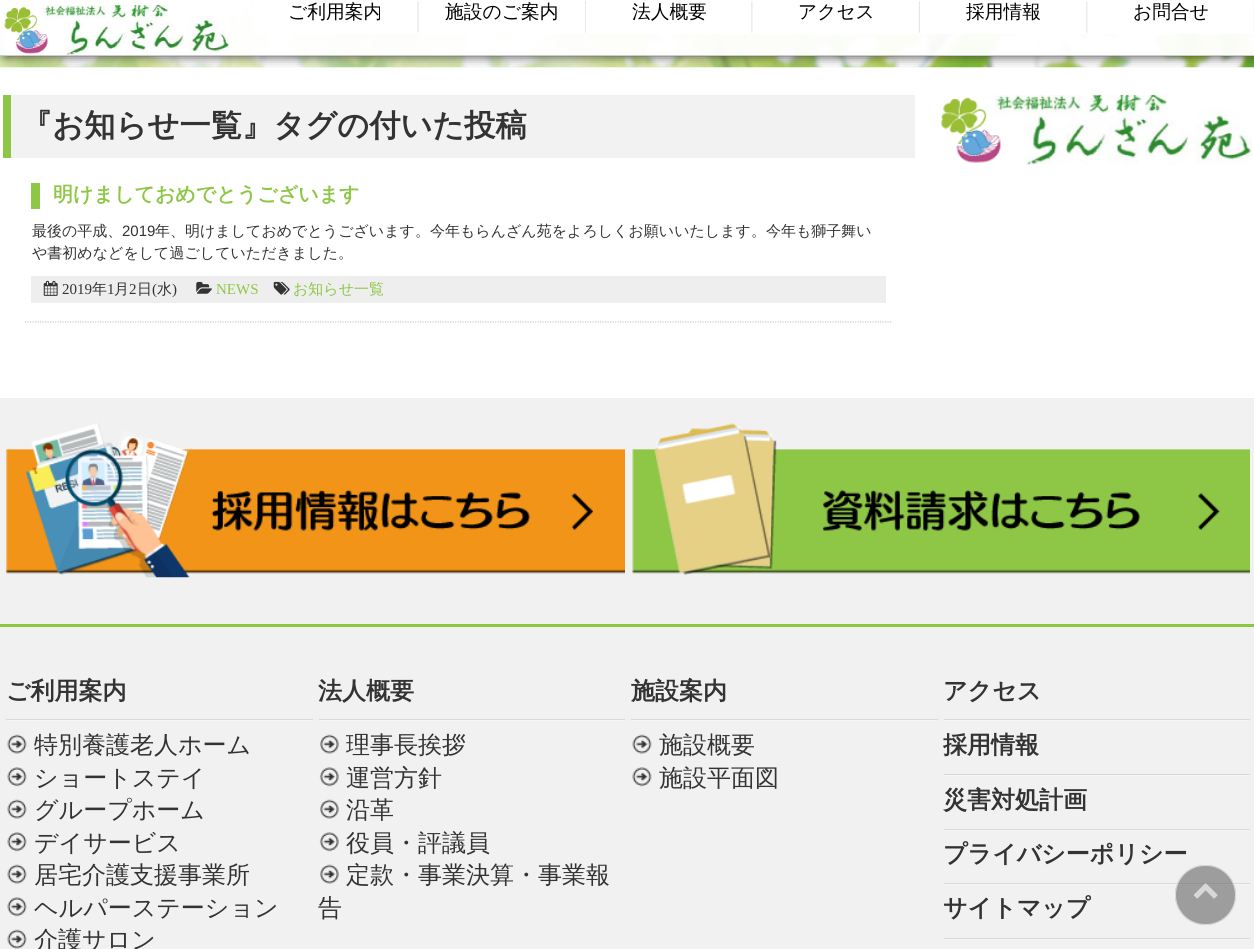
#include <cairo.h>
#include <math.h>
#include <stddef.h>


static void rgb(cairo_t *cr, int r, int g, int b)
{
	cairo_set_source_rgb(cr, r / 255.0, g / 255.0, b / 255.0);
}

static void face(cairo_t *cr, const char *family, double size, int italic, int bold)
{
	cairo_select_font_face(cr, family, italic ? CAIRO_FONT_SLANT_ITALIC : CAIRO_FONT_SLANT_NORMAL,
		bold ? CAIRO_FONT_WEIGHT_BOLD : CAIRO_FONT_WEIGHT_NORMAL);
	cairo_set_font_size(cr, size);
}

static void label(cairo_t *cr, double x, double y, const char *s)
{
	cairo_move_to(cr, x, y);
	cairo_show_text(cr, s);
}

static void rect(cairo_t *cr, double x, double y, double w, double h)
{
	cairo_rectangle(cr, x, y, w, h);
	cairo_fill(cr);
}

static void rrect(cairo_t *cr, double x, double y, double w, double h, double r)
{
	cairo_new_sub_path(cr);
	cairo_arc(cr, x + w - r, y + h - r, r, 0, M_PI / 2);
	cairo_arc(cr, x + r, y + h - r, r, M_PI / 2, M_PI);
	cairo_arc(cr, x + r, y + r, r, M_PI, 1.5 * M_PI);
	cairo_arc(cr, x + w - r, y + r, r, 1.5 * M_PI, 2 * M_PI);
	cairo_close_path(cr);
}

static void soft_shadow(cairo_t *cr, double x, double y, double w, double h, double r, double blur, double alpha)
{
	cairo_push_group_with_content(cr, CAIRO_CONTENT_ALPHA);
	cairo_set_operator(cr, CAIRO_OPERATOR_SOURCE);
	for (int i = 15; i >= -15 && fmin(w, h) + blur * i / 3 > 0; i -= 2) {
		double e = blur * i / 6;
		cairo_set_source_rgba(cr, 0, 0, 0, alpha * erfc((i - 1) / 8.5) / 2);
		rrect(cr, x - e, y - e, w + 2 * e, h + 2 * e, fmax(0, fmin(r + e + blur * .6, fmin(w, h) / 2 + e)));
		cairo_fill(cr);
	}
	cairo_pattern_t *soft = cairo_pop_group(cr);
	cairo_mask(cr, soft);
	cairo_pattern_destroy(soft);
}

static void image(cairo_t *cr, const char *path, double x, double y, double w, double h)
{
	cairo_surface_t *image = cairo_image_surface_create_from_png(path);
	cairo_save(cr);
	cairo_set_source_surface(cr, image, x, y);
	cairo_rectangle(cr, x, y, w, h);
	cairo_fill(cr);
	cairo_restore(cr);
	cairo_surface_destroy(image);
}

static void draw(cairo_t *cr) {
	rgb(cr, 255, 255, 255);
	cairo_paint(cr);
	image(cr, "image0.png", 0, 0, 1254, 68);
	cairo_save(cr);
	cairo_rectangle(cr, 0, 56, 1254, 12);
	cairo_clip(cr);
	rgb(cr, 51, 51, 51);
	soft_shadow(cr, 6, 0, 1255, 56, 0, 6, 1);
	cairo_restore(cr);
	cairo_set_source_rgba(cr, 1, 1, 1, 0.95);
	rect(cr, 0, 0, 1254, 55);
	rgb(cr, 204, 204, 204);
	rect(cr, 0, 55, 1254, 1);
	image(cr, "image1.png", 4, 5, 226, 50);
	image(cr, "image2.png", 251, 1, 2, 32);
	cairo_set_source_rgba(cr, 1, 1, 1, 0.95);
	rect(cr, 251, 1, 168, 33);
	image(cr, "image3.png", 417, 1, 2, 32);
	face(cr, "WenQuanYi Zen Hei Medium", 18.75, 0, 0);
	rgb(cr, 0, 0, 0);
	label(cr, 288, 18, "ご利用案内");
	cairo_set_source_rgba(cr, 1, 1, 1, 0.95);
	rect(cr, 419, 0, 167, 34);
	image(cr, "image4.png", 585, 1, 2, 32);
	rgb(cr, 0, 0, 0);
	label(cr, 445, 18, "施設のご案内");
	cairo_set_source_rgba(cr, 1, 1, 1, 0.95);
	rect(cr, 586, 0, 167, 34);
	image(cr, "image5.png", 751, 1, 2, 32);
	rgb(cr, 0, 0, 0);
	label(cr, 632, 18, "法人概要");
	cairo_set_source_rgba(cr, 1, 1, 1, 0.95);
	rect(cr, 753, 0, 167, 34);
	image(cr, "image6.png", 918, 1, 2, 32);
	rgb(cr, 0, 0, 0);
	label(cr, 798, 18, "アクセス");
	cairo_set_source_rgba(cr, 1, 1, 1, 0.95);
	rect(cr, 920, 0, 168, 34);
	image(cr, "image5.png", 1086, 1, 2, 32);
	rgb(cr, 0, 0, 0);
	label(cr, 966, 18, "採用情報");
	cairo_set_source_rgba(cr, 1, 1, 1, 0.95);
	rect(cr, 1088, 0, 166, 34);
	rgb(cr, 250, 250, 249);
	rect(cr, 1253, 2, 1, 30);
	rgb(cr, 0, 0, 0);
	label(cr, 1133, 18, "お問合せ");
	rgb(cr, 242, 242, 242);
	rect(cr, 11, 95, 904, 63);
	rgb(cr, 142, 199, 70);
	rect(cr, 3, 95, 8, 63);
	face(cr, "WenQuanYi Zen Hei", 31.25, 0, 1);
	rgb(cr, 51, 51, 51);
	label(cr, 21, 136, "『お知らせ一覧』タグの付いた投稿");
	cairo_new_path(cr);
	cairo_move_to(cr, 25, 322);
	cairo_line_to(cr, 892.5, 322);
	rgb(cr, 204, 204, 204);
	cairo_set_line_width(cr, 1.2);
	cairo_set_dash(cr, (double[]){1.25, 1.25}, 2, 0);
	cairo_stroke(cr);
	rgb(cr, 142, 199, 70);
	rect(cr, 31, 183, 9, 26);
	face(cr, "WenQuanYi Zen Hei", 20, 0, 1);
	label(cr, 53, 201, "明けましておめでとうございます");
	face(cr, "WenQuanYi Zen Hei Medium", 15, 0, 0);
	rgb(cr, 51, 51, 51);
	label(cr, 32, 236, "最後の平成、");
	face(cr, "Liberation Sans", 15, 0, 0);
	label(cr, 122, 236, "2019");
	face(cr, "WenQuanYi Zen Hei Medium", 15, 0, 0);
	label(cr, 155, 236, "年、明けましておめでとうございます。今年もらんざん苑をよろしくお願いいたします。今年も獅子舞い");
	label(cr, 32, 258, "や書初めなどをして過ごしていただきました。");
	rgb(cr, 238, 238, 238);
	rect(cr, 31, 276, 855, 27);
	image(cr, "image7.png", 43, 280, 15, 16);
	face(cr, "Liberation Serif", 15, 0, 0);
	rgb(cr, 51, 51, 51);
	label(cr, 62, 294, "2019");
	face(cr, "WenQuanYi Zen Hei Medium", 15, 0, 0);
	label(cr, 92, 294, "年");
	face(cr, "Liberation Serif", 15, 0, 0);
	label(cr, 107, 294, "1");
	face(cr, "WenQuanYi Zen Hei Medium", 15, 0, 0);
	label(cr, 114, 294, "月");
	face(cr, "Liberation Serif", 15, 0, 0);
	label(cr, 129, 294, "2");
	face(cr, "WenQuanYi Zen Hei Medium", 15, 0, 0);
	label(cr, 137, 294, "日");
	face(cr, "Liberation Serif", 15, 0, 0);
	label(cr, 152, 294, "(");
	face(cr, "WenQuanYi Zen Hei Medium", 15, 0, 0);
	label(cr, 157, 294, "水");
	face(cr, "Liberation Serif", 15, 0, 0);
	label(cr, 172, 294, ")");
	image(cr, "image8.png", 196, 281, 16, 13);
	rgb(cr, 142, 199, 70);
	label(cr, 216, 294, "NEWS");
	image(cr, "image9.png", 273, 281, 17, 14);
	face(cr, "WenQuanYi Zen Hei Medium", 15, 0, 0);
	label(cr, 293, 294, "お知らせ一覧");
	image(cr, "image10.png", 941, 94, 311, 71);
	rgb(cr, 241, 241, 241);
	rect(cr, 0, 398, 1254, 551);
	image(cr, "image11.png", 6, 423, 619, 155);
	image(cr, "image12.png", 632, 423, 618, 152);
	rgb(cr, 142, 199, 70);
	rect(cr, 0, 624, 1254, 3);
	face(cr, "WenQuanYi Zen Hei", 24, 0, 1);
	rgb(cr, 51, 51, 51);
	label(cr, 6, 699, "ご利用案内");
	rgb(cr, 217, 217, 217);
	rect(cr, 6, 719, 307, 1);
	rgb(cr, 245, 245, 245);
	rect(cr, 6, 720, 307, 1);
	image(cr, "image13.png", 7, 734, 20, 20);
	face(cr, "WenQuanYi Zen Hei Medium", 24, 0, 0);
	rgb(cr, 51, 51, 51);
	label(cr, 34, 753, "特別養護老人ホーム");
	image(cr, "image14.png", 7, 767, 20, 20);
	label(cr, 34, 786, "ショートステイ");
	image(cr, "image13.png", 7, 799, 20, 20);
	label(cr, 34, 818, "グループホーム");
	image(cr, "image14.png", 7, 832, 20, 20);
	label(cr, 34, 851, "デイサービス");
	image(cr, "image13.png", 7, 864, 20, 20);
	label(cr, 34, 883, "居宅介護支援事業所");
	image(cr, "image14.png", 7, 897, 20, 20);
	label(cr, 34, 916, "ヘルパーステーション");
	image(cr, "image13.png", 7, 929, 20, 20);
	label(cr, 34, 948, "介護サロン");
	face(cr, "WenQuanYi Zen Hei", 24, 0, 1);
	label(cr, 318, 699, "法人概要");
	rgb(cr, 217, 217, 217);
	rect(cr, 319, 719, 306, 1);
	rgb(cr, 245, 245, 245);
	rect(cr, 319, 720, 306, 1);
	image(cr, "image15.png", 320, 734, 19, 20);
	face(cr, "WenQuanYi Zen Hei Medium", 24, 0, 0);
	rgb(cr, 51, 51, 51);
	label(cr, 346, 753, "理事長挨拶");
	image(cr, "image16.png", 319, 767, 20, 20);
	label(cr, 346, 786, "運営方針");
	image(cr, "image15.png", 320, 799, 19, 20);
	label(cr, 346, 818, "沿革");
	image(cr, "image16.png", 319, 832, 20, 20);
	label(cr, 346, 851, "役員・評議員");
	image(cr, "image15.png", 320, 864, 19, 20);
	label(cr, 346, 883, "定款・事業決算・事業報");
	label(cr, 318, 916, "告");
	face(cr, "WenQuanYi Zen Hei", 24, 0, 1);
	label(cr, 631, 699, "施設案内");
	rgb(cr, 217, 217, 217);
	rect(cr, 631, 719, 307, 1);
	rgb(cr, 245, 245, 245);
	rect(cr, 631, 720, 307, 1);
	image(cr, "image13.png", 632, 734, 20, 20);
	face(cr, "WenQuanYi Zen Hei Medium", 24, 0, 0);
	rgb(cr, 51, 51, 51);
	label(cr, 659, 753, "施設概要");
	image(cr, "image14.png", 632, 767, 20, 20);
	label(cr, 659, 786, "施設平面図");
	face(cr, "WenQuanYi Zen Hei", 24, 0, 1);
	label(cr, 943, 699, "アクセス");
	rgb(cr, 217, 217, 217);
	rect(cr, 944, 719, 306, 1);
	rgb(cr, 245, 245, 245);
	rect(cr, 944, 720, 306, 1);
	rgb(cr, 51, 51, 51);
	label(cr, 943, 753, "採用情報");
	rgb(cr, 217, 217, 217);
	rect(cr, 944, 774, 306, 1);
	rgb(cr, 245, 245, 245);
	rect(cr, 944, 775, 306, 1);
	rgb(cr, 51, 51, 51);
	label(cr, 943, 808, "災害対処計画");
	rgb(cr, 217, 217, 217);
	rect(cr, 944, 829, 306, 1);
	rgb(cr, 245, 245, 245);
	rect(cr, 944, 830, 306, 1);
	rgb(cr, 51, 51, 51);
	label(cr, 943, 862, "プライバシーポリシー");
	rgb(cr, 217, 217, 217);
	rect(cr, 944, 883, 306, 1);
	rgb(cr, 245, 245, 245);
	rect(cr, 944, 884, 306, 1);
	rgb(cr, 51, 51, 51);
	label(cr, 943, 916, "サイトマップ");
	rgb(cr, 217, 217, 217);
	rect(cr, 944, 938, 306, 1);
	rgb(cr, 245, 245, 245);
	rect(cr, 944, 939, 306, 1);
	cairo_set_source_rgba(cr, 0.4, 0.4, 0.4, 0.6);
	rrect(cr, 1175, 865, 61, 60, 30);
	cairo_fill(cr);
	rrect(cr, 1175.5, 865.5, 60, 59, 29.5);
	cairo_set_source_rgba(cr, 1, 1, 1, 0.6);
	cairo_set_line_width(cr, 1);
	cairo_set_dash(cr, NULL, 0, 0);
	cairo_stroke(cr);
	image(cr, "image17.png", 1193, 883, 25, 16);
}

int main(void) {
	cairo_surface_t *surface = cairo_image_surface_create(CAIRO_FORMAT_RGB24, 1254, 949);
	cairo_t *cr = cairo_create(surface);
	cairo_font_options_t *options = cairo_font_options_create();
	cairo_font_options_set_hint_metrics(options, CAIRO_HINT_METRICS_OFF);
	cairo_font_options_set_hint_style(options, CAIRO_HINT_STYLE_NONE);
	cairo_set_font_options(cr, options);
	cairo_set_miter_limit(cr, 4);
	draw(cr);
	cairo_surface_write_to_png(surface, "render.png");
	cairo_font_options_destroy(options);
	cairo_destroy(cr);
	cairo_surface_destroy(surface);
	return 0;
}
